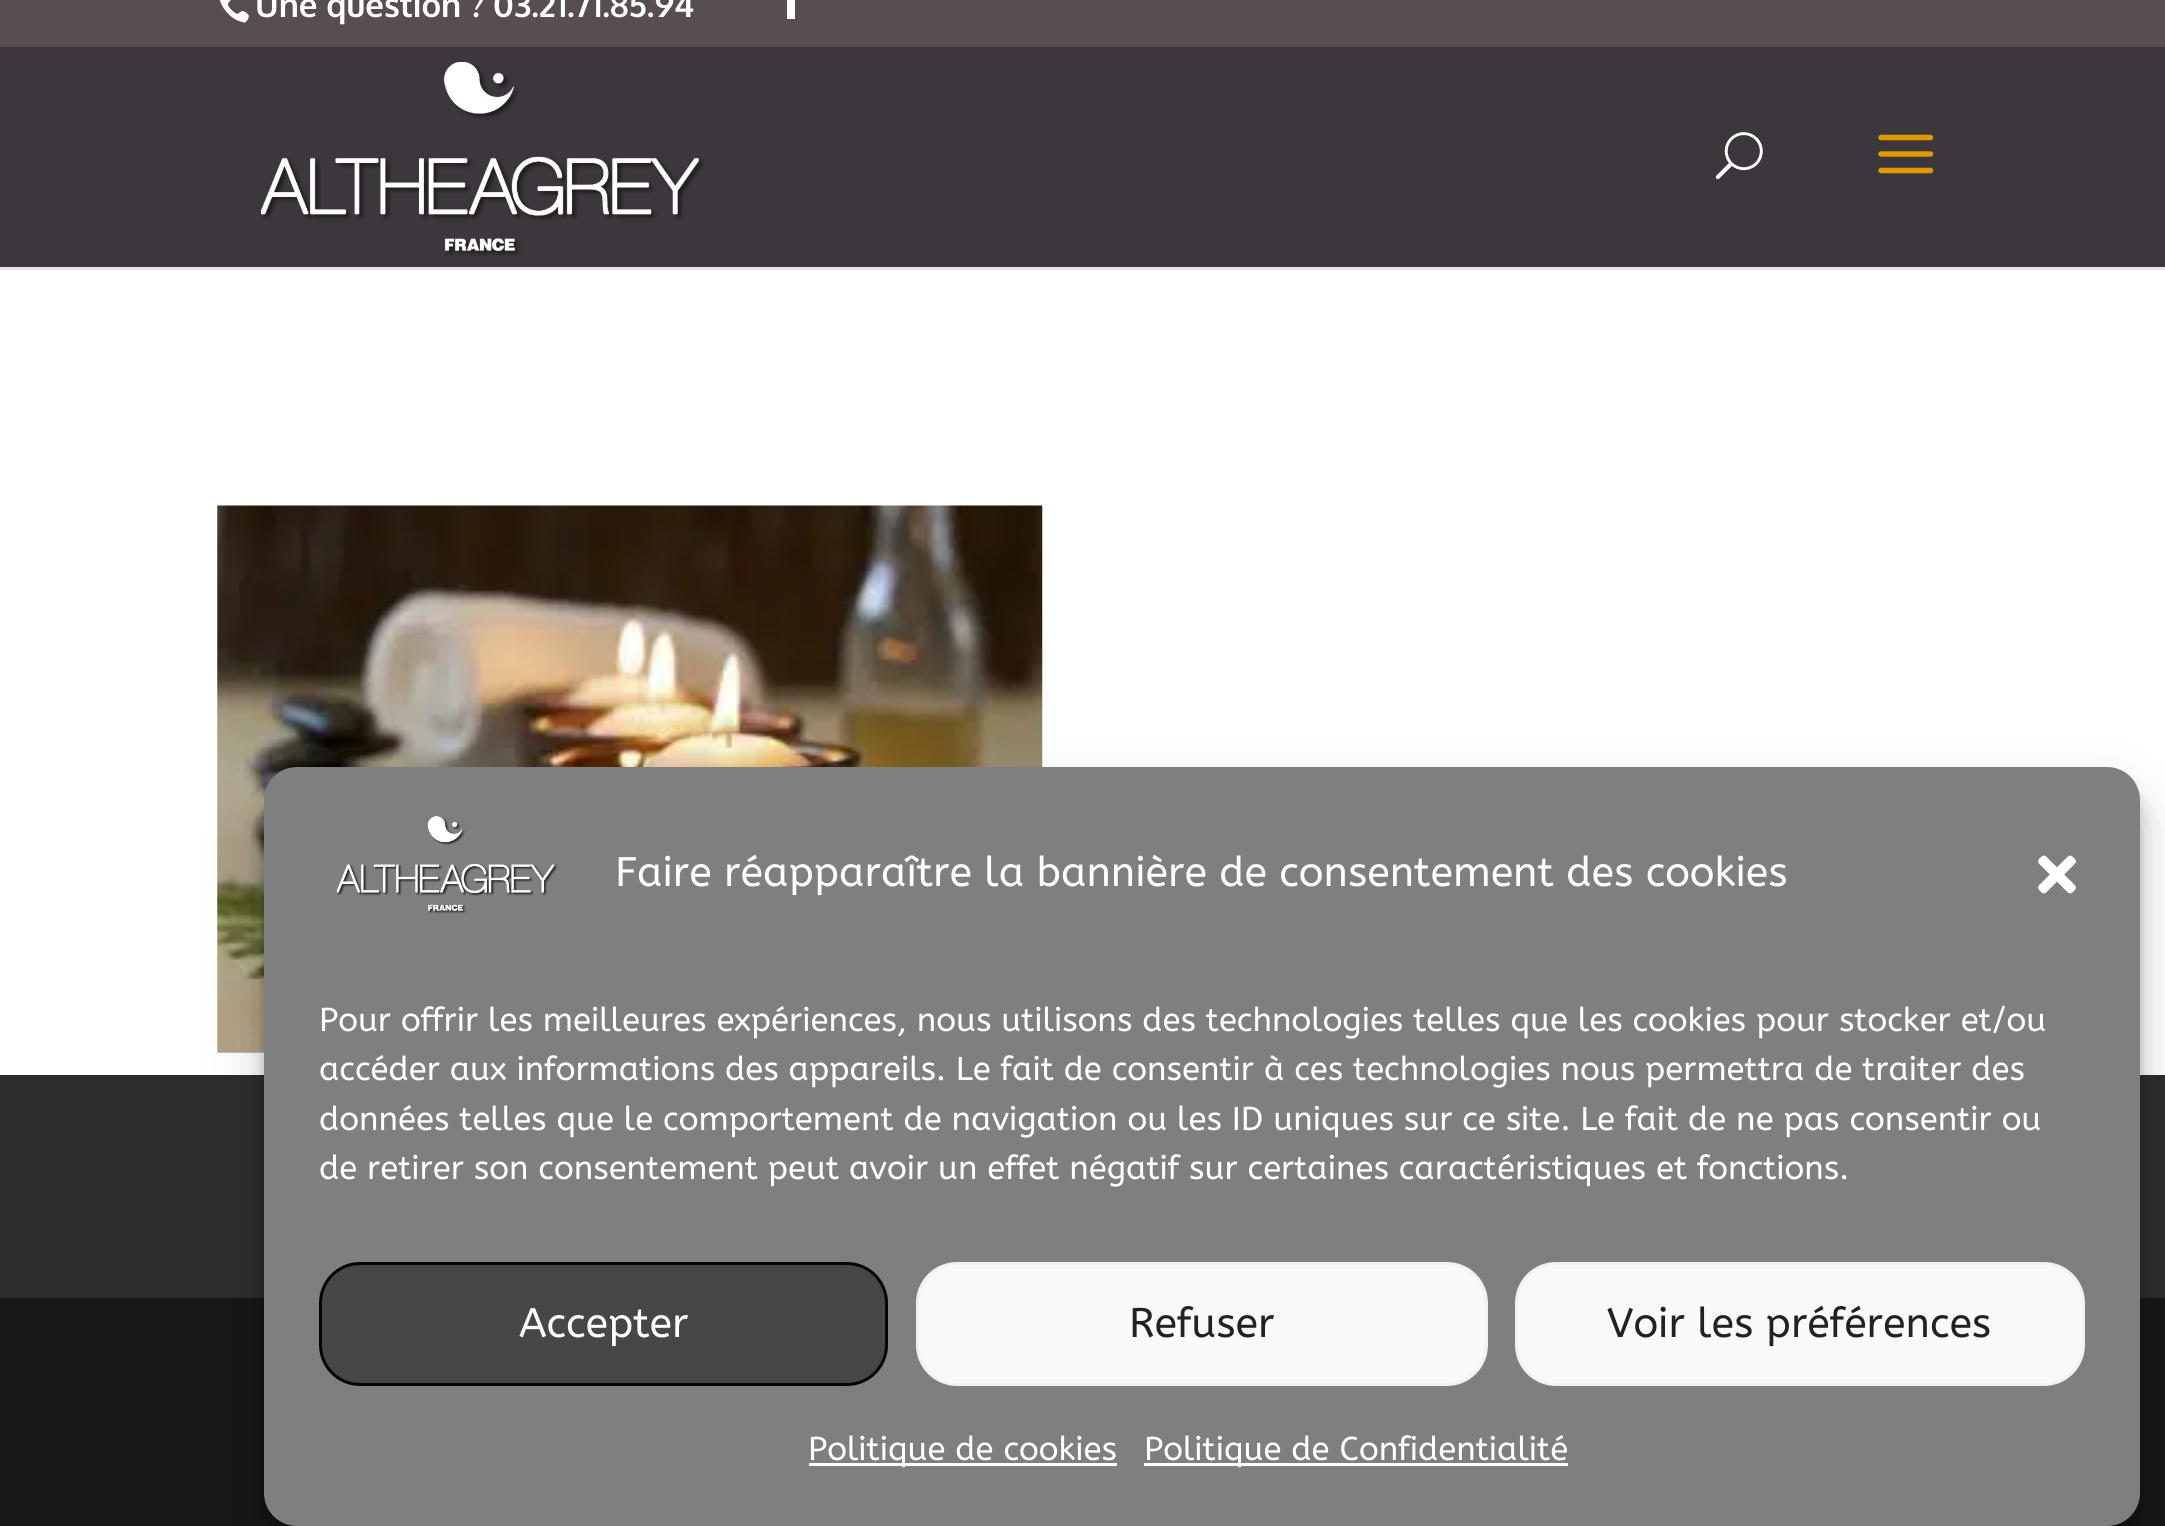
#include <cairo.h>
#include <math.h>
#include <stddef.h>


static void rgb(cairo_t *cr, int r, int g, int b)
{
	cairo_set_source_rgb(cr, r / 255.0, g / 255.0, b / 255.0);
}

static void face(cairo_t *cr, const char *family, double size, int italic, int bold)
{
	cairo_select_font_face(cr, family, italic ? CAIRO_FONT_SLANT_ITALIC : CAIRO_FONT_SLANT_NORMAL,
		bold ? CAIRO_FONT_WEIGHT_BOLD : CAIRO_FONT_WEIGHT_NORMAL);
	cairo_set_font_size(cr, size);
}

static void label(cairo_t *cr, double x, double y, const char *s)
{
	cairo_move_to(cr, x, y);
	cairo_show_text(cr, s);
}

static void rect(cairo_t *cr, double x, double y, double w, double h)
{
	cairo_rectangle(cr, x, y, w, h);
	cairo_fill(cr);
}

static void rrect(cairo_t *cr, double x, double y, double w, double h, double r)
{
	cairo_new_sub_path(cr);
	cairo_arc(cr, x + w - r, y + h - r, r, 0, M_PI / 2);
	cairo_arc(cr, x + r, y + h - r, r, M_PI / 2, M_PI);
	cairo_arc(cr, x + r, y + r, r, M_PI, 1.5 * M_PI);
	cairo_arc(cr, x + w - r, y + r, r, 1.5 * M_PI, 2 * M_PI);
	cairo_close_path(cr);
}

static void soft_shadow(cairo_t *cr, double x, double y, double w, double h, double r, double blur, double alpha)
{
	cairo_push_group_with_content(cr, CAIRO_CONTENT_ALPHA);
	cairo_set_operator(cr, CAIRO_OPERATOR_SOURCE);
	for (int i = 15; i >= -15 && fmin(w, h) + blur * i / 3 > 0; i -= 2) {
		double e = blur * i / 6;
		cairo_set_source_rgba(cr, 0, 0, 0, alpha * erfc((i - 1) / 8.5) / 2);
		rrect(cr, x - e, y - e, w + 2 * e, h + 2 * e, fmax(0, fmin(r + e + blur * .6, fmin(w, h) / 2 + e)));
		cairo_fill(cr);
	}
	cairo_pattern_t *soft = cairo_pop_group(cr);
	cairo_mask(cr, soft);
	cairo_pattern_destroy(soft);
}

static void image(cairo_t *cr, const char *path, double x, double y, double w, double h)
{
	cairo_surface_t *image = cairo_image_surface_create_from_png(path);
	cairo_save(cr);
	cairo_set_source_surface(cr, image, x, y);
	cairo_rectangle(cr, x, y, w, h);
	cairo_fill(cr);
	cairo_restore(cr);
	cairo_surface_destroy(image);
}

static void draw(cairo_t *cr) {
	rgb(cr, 255, 255, 255);
	cairo_paint(cr);
	rgb(cr, 89, 78, 79);
	rect(cr, 0, 0, 2165, 47);
	image(cr, "image0.png", 219, 0, 30, 23);
	face(cr, "Oxygen", 33, 0, 1);
	rgb(cr, 255, 255, 255);
	label(cr, 255, 17, "Une question ? 03.21.71.85.94");
	rect(cr, 787, 0, 8, 19);
	rgb(cr, 230, 230, 230);
	rect(cr, 0, 267, 2165, 3);
	rgb(cr, 60, 55, 60);
	rect(cr, 0, 47, 2165, 220);
	image(cr, "image1.png", 261, 62, 443, 194);
	image(cr, "image2.png", 1715, 132, 48, 48);
	image(cr, "image3.png", 1878, 134, 56, 40);
	image(cr, "image4.png", 217, 505, 826, 548);
	rgb(cr, 45, 45, 45);
	rect(cr, 0, 1075, 2165, 223);
	rgb(cr, 23, 23, 23);
	rect(cr, 0, 1298, 2165, 228);
	rgb(cr, 0, 0, 0);
	soft_shadow(cr, 264, 784, 1876, 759, 33, 8, 0.23);
	soft_shadow(cr, 264, 795, 1876, 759, 33, 27.5, 0.19);
	rgb(cr, 127, 127, 127);
	rrect(cr, 264, 767, 1876, 759, 33);
	cairo_fill(cr);
	image(cr, "image5.png", 336, 816, 221, 98);
	face(cr, "ABeeZee", 41.25, 0, 0);
	rgb(cr, 255, 255, 255);
	label(cr, 615, 886, "Faire réapparaître la bannière de consentement des cookies");
	image(cr, "image6.png", 2038, 855, 38, 39);
	face(cr, "ABeeZee", 33, 0, 0);
	label(cr, 319, 1031, "Pour offrir les meilleures expériences, nous utilisons des technologies telles que les cookies pour stocker et/ou");
	label(cr, 319, 1080, "accéder aux informations des appareils. Le fait de consentir à ces technologies nous permettra de traiter des");
	label(cr, 319, 1130, "données telles que le comportement de navigation ou les ID uniques sur ce site. Le fait de ne pas consentir ou");
	label(cr, 319, 1179, "de retirer son consentement peut avoir un effet négatif sur certaines caractéristiques et fonctions.");
	rgb(cr, 71, 71, 71);
	rrect(cr, 320.5, 1263.5, 566, 121, 39.5);
	cairo_fill_preserve(cr);
	rgb(cr, 10, 1, 1);
	cairo_set_line_width(cr, 3);
	cairo_stroke(cr);
	face(cr, "ABeeZee", 41.25, 0, 0);
	rgb(cr, 255, 255, 255);
	label(cr, 519, 1337, "Accepter");
	rgb(cr, 249, 249, 249);
	rrect(cr, 917.5, 1263.5, 569, 121, 39.5);
	cairo_fill_preserve(cr);
	rgb(cr, 242, 242, 242);
	cairo_stroke(cr);
	rgb(cr, 34, 34, 34);
	label(cr, 1129, 1337, "Refuser");
	rgb(cr, 249, 249, 249);
	rrect(cr, 1516.5, 1263.5, 567, 121, 39.5);
	cairo_fill_preserve(cr);
	rgb(cr, 242, 242, 242);
	cairo_stroke(cr);
	rgb(cr, 34, 34, 34);
	label(cr, 1607, 1337, "Voir les préférences");
	rgb(cr, 255, 255, 255);
	rect(cr, 809, 1463, 308, 3);
	face(cr, "ABeeZee", 33, 0, 0);
	label(cr, 808, 1460, "Politique de cookies");
	rect(cr, 1144, 1463, 424, 3);
	label(cr, 1144, 1460, "Politique de Confidentialité");
}

int main(void) {
	cairo_surface_t *surface = cairo_image_surface_create(CAIRO_FORMAT_RGB24, 2165, 1526);
	cairo_t *cr = cairo_create(surface);
	cairo_font_options_t *options = cairo_font_options_create();
	cairo_font_options_set_hint_metrics(options, CAIRO_HINT_METRICS_OFF);
	cairo_font_options_set_hint_style(options, CAIRO_HINT_STYLE_NONE);
	cairo_set_font_options(cr, options);
	cairo_set_miter_limit(cr, 4);
	draw(cr);
	cairo_surface_write_to_png(surface, "render.png");
	cairo_font_options_destroy(options);
	cairo_destroy(cr);
	cairo_surface_destroy(surface);
	return 0;
}
